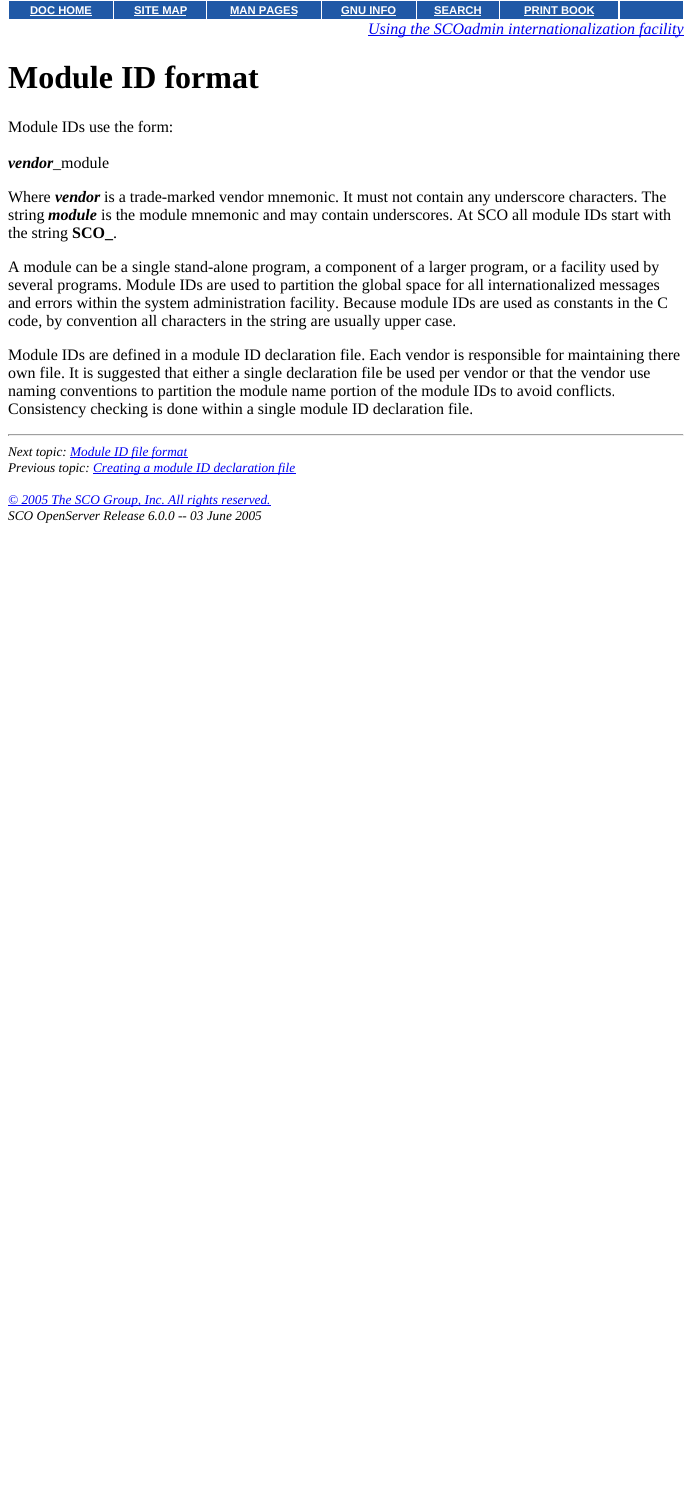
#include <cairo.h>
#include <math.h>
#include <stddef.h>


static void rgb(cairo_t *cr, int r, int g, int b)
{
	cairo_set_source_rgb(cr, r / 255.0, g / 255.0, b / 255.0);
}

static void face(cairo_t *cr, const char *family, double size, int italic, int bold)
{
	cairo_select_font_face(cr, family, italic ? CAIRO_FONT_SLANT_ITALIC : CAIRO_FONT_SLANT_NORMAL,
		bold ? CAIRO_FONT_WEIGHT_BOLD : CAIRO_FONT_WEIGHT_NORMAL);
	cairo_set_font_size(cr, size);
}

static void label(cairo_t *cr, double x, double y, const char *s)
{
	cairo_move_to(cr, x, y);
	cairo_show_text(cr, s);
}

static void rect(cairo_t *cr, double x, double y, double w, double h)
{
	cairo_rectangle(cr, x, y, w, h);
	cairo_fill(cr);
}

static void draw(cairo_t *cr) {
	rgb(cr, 255, 255, 255);
	cairo_paint(cr);
	rgb(cr, 32, 89, 166);
	rect(cr, 9, 1, 104, 18);
	face(cr, "Liberation Sans", 11.25, 0, 1);
	rgb(cr, 255, 255, 255);
	label(cr, 30, 14, "DOC HOME");
	rect(cr, 30, 15, 62, 1);
	rgb(cr, 32, 89, 166);
	rect(cr, 114, 1, 92, 18);
	rgb(cr, 255, 255, 255);
	label(cr, 134, 14, "SITE MAP");
	rect(cr, 134, 15, 52, 1);
	rgb(cr, 32, 89, 166);
	rect(cr, 207, 1, 114, 18);
	rgb(cr, 255, 255, 255);
	label(cr, 230, 14, "MAN PAGES");
	rect(cr, 230, 15, 67, 1);
	rgb(cr, 32, 89, 166);
	rect(cr, 322, 1, 94, 18);
	rgb(cr, 255, 255, 255);
	label(cr, 341, 14, "GNU INFO");
	rect(cr, 341, 15, 55, 1);
	rgb(cr, 32, 89, 166);
	rect(cr, 417, 1, 82, 18);
	rgb(cr, 255, 255, 255);
	label(cr, 434, 14, "SEARCH");
	rect(cr, 434, 15, 47, 1);
	rgb(cr, 32, 89, 166);
	rect(cr, 500, 1, 118, 18);
	rgb(cr, 255, 255, 255);
	label(cr, 524, 14, "PRINT BOOK");
	rect(cr, 524, 15, 70, 1);
	rgb(cr, 32, 89, 166);
	rect(cr, 620, 1, 63, 18);
	rgb(cr, 0, 0, 238);
	rect(cr, 368, 35, 316, 1);
	face(cr, "Liberation Serif", 16, 1, 0);
	label(cr, 368, 34, "Using the SCOadmin internationalization facility");
	face(cr, "Liberation Serif", 32, 0, 1);
	rgb(cr, 0, 0, 0);
	label(cr, 8, 88, "Module ID format");
	face(cr, "Liberation Serif", 16, 0, 0);
	label(cr, 8, 132, "Module IDs use the form:");
	face(cr, "Liberation Serif", 16, 1, 1);
	label(cr, 8, 168, "vendor");
	face(cr, "Liberation Serif", 16, 0, 0);
	label(cr, 53, 168, "_module");
	label(cr, 8, 202, "Where");
	face(cr, "Liberation Serif", 16, 1, 1);
	label(cr, 55, 202, "vendor");
	face(cr, "Liberation Serif", 16, 0, 0);
	label(cr, 104, 202, "is a trade-marked vendor mnemonic. It must not contain any underscore characters. The");
	label(cr, 8, 220, "string");
	face(cr, "Liberation Serif", 16, 1, 1);
	label(cr, 48, 220, "module");
	face(cr, "Liberation Serif", 16, 0, 0);
	label(cr, 101, 220, "is the module mnemonic and may contain underscores. At SCO all module IDs start with");
	label(cr, 8, 238, "the string");
	face(cr, "Liberation Serif", 16, 0, 1);
	label(cr, 72, 238, "SCO_");
	face(cr, "Liberation Serif", 16, 0, 0);
	label(cr, 113, 238, ".");
	label(cr, 8, 272, "A module can be a single stand-alone program, a component of a larger program, or a facility used by");
	label(cr, 8, 290, "several programs. Module IDs are used to partition the global space for all internationalized messages");
	label(cr, 8, 308, "and errors within the system administration facility. Because module IDs are used as constants in the C");
	label(cr, 8, 326, "code, by convention all characters in the string are usually upper case.");
	label(cr, 8, 360, "Module IDs are defined in a module ID declaration file. Each vendor is responsible for maintaining there");
	label(cr, 8, 378, "own file. It is suggested that either a single declaration file be used per vendor or that the vendor use");
	label(cr, 8, 396, "naming conventions to partition the module name portion of the module IDs to avoid conflicts.");
	label(cr, 8, 414, "Consistency checking is done within a single module ID declaration file.");
	rgb(cr, 159, 159, 159);
	rect(cr, 8, 434, 676, 1);
	rgb(cr, 238, 238, 238);
	rect(cr, 683, 434, 1, 2);
	rect(cr, 8, 435, 676, 1);
	rgb(cr, 159, 159, 159);
	rect(cr, 8, 434, 1, 2);
	face(cr, "Liberation Serif", 13.3, 1, 0);
	rgb(cr, 0, 0, 0);
	label(cr, 8, 456, "Next topic:");
	rgb(cr, 0, 0, 238);
	rect(cr, 70, 457, 118, 1);
	label(cr, 70, 456, "Module ID file format");
	rgb(cr, 0, 0, 0);
	label(cr, 8, 472, "Previous topic:");
	rgb(cr, 0, 0, 238);
	rect(cr, 93, 473, 203, 1);
	label(cr, 93, 472, "Creating a module ID declaration file");
	rect(cr, 8, 505, 263, 1);
	label(cr, 8, 504, "© 2005 The SCO Group, Inc. All rights reserved.");
	rgb(cr, 0, 0, 0);
	label(cr, 8, 520, "SCO OpenServer Release 6.0.0 -- 03 June 2005");
}

int main(void) {
	cairo_surface_t *surface = cairo_image_surface_create(CAIRO_FORMAT_RGB24, 692, 1509);
	cairo_t *cr = cairo_create(surface);
	cairo_font_options_t *options = cairo_font_options_create();
	cairo_font_options_set_hint_metrics(options, CAIRO_HINT_METRICS_OFF);
	cairo_font_options_set_hint_style(options, CAIRO_HINT_STYLE_NONE);
	cairo_set_font_options(cr, options);
	cairo_set_miter_limit(cr, 4);
	draw(cr);
	cairo_surface_write_to_png(surface, "render.png");
	cairo_font_options_destroy(options);
	cairo_destroy(cr);
	cairo_surface_destroy(surface);
	return 0;
}
